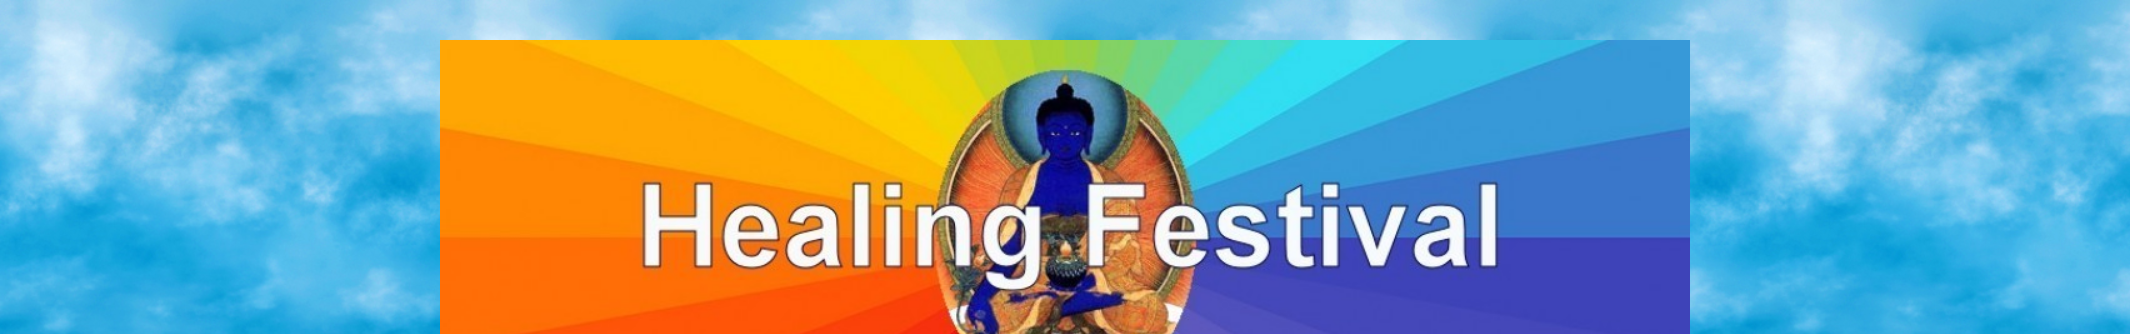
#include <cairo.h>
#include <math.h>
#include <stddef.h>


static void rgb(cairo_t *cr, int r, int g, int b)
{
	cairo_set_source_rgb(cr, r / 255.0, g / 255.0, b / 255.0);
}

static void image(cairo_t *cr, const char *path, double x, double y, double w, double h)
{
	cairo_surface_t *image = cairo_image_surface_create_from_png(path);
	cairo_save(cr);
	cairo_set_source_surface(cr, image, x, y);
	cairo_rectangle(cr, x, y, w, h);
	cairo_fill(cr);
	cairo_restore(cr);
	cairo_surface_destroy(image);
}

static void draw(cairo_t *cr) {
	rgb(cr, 255, 255, 255);
	cairo_paint(cr);
	image(cr, "image0.png", 0, 0, 2130, 334);
	image(cr, "image1.png", 440, 40, 1250, 294);
}

int main(void) {
	cairo_surface_t *surface = cairo_image_surface_create(CAIRO_FORMAT_RGB24, 2130, 334);
	cairo_t *cr = cairo_create(surface);
	cairo_font_options_t *options = cairo_font_options_create();
	cairo_font_options_set_hint_metrics(options, CAIRO_HINT_METRICS_OFF);
	cairo_font_options_set_hint_style(options, CAIRO_HINT_STYLE_NONE);
	cairo_set_font_options(cr, options);
	cairo_set_miter_limit(cr, 4);
	draw(cr);
	cairo_surface_write_to_png(surface, "render.png");
	cairo_font_options_destroy(options);
	cairo_destroy(cr);
	cairo_surface_destroy(surface);
	return 0;
}
